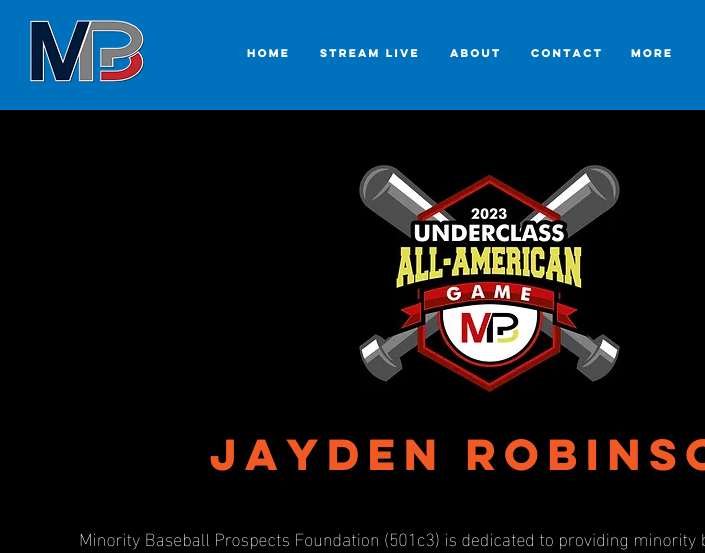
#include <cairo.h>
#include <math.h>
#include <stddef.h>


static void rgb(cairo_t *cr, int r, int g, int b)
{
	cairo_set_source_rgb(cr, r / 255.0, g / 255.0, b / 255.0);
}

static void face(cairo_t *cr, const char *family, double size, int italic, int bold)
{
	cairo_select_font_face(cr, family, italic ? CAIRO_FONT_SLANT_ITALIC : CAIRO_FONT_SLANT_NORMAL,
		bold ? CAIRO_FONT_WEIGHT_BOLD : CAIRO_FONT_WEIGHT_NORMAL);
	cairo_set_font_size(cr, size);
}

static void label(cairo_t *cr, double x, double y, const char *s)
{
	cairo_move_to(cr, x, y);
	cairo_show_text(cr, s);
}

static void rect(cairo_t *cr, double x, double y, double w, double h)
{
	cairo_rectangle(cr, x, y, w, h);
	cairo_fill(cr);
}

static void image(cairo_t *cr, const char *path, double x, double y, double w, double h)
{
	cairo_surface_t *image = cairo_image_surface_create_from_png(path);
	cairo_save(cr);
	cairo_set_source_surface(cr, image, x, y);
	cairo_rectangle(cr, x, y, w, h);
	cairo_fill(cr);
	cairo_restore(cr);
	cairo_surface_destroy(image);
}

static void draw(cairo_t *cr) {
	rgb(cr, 0, 0, 0);
	cairo_paint(cr);
	rgb(cr, 0, 113, 188);
	rect(cr, 0, 0, 705, 110);
	image(cr, "image0.png", 30, 20, 115, 63);
	face(cr, "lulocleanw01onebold", 10, 0, 1);
	rgb(cr, 255, 255, 255);
	label(cr, 247, 57, "HOME");
	label(cr, 320, 57, "STREAM LIVE");
	label(cr, 450, 57, "ABOUT");
	label(cr, 531, 57, "CONTACT");
	label(cr, 631, 57, "More");
	image(cr, "image1.png", 359, 165, 263, 231);
	face(cr, "lulocleanw01onebold", 39, 0, 1);
	rgb(cr, 241, 90, 36);
	label(cr, 210, 470, "Jayden Robinso");
	face(cr, "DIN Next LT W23 ExtraLight", 18, 0, 0);
	rgb(cr, 255, 255, 255);
	label(cr, 79, 546, "Minority Baseball Prospects Foundation (501c3) is dedicated to providing minority b");
}

int main(void) {
	cairo_surface_t *surface = cairo_image_surface_create(CAIRO_FORMAT_RGB24, 705, 553);
	cairo_t *cr = cairo_create(surface);
	cairo_font_options_t *options = cairo_font_options_create();
	cairo_font_options_set_hint_metrics(options, CAIRO_HINT_METRICS_OFF);
	cairo_font_options_set_hint_style(options, CAIRO_HINT_STYLE_NONE);
	cairo_set_font_options(cr, options);
	cairo_set_miter_limit(cr, 4);
	draw(cr);
	cairo_surface_write_to_png(surface, "render.png");
	cairo_font_options_destroy(options);
	cairo_destroy(cr);
	cairo_surface_destroy(surface);
	return 0;
}
